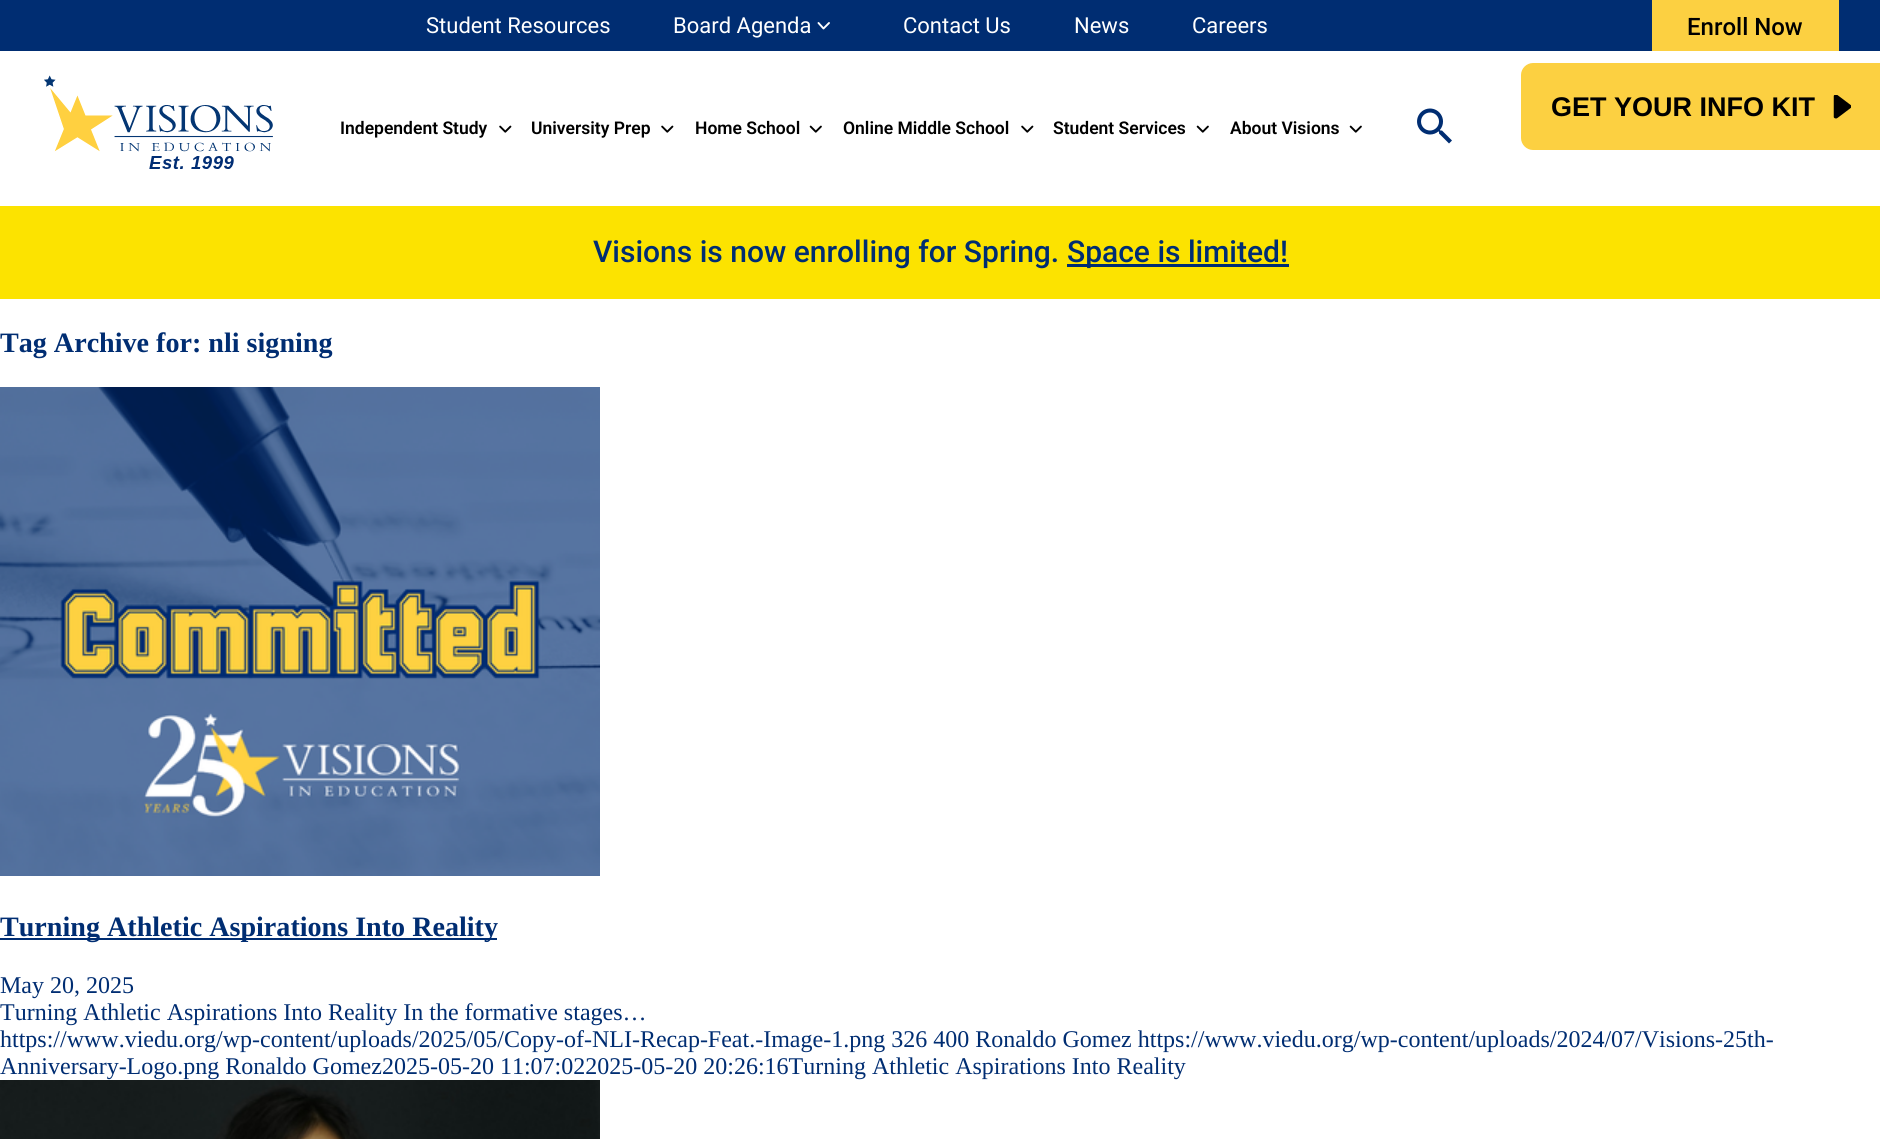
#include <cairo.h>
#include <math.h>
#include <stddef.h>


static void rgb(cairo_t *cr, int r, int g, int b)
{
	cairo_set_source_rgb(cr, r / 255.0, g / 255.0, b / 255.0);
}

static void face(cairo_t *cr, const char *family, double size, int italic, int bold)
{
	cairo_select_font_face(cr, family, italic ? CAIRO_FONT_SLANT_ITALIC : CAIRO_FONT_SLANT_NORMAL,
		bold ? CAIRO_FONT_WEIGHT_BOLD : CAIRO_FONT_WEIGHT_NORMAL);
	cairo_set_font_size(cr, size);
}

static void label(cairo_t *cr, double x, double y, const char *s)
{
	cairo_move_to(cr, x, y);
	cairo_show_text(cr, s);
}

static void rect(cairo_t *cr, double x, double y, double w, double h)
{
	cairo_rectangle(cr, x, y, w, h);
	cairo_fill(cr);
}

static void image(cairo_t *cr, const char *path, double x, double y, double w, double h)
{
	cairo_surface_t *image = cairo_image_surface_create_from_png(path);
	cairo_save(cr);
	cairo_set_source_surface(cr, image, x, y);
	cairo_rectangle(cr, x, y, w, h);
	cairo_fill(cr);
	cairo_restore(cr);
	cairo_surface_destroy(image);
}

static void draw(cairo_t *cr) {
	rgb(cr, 255, 255, 255);
	cairo_paint(cr);
	rgb(cr, 0, 45, 114);
	rect(cr, 0, 0, 1880, 51);
	face(cr, "Roboto", 22, 0, 0);
	rgb(cr, 255, 255, 255);
	label(cr, 426, 33, "Student Resources");
	label(cr, 673, 33, "Board Agenda");
	cairo_new_path(cr);
	cairo_move_to(cr, 829, 23);
	cairo_line_to(cr, 823.5, 28.5);
	cairo_line_to(cr, 818.5, 23);
	cairo_set_line_width(cr, 1.9);
	cairo_set_line_cap(cr, CAIRO_LINE_CAP_ROUND);
	cairo_set_line_join(cr, CAIRO_LINE_JOIN_ROUND);
	cairo_stroke(cr);
	label(cr, 903, 33, "Contact Us");
	label(cr, 1074, 33, "News");
	label(cr, 1192, 33, "Careers");
	rgb(cr, 252, 208, 65);
	rect(cr, 1652, 0, 187, 51);
	face(cr, "Roboto Medium", 24, 0, 0);
	rgb(cr, 0, 0, 0);
	label(cr, 1687, 35, "Enroll Now");
	image(cr, "image0.png", 44, 75, 229, 94);
	rgb(cr, 252, 208, 65);
	cairo_new_path(cr);
	cairo_move_to(cr, 1533, 63);
	cairo_line_to(cr, 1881, 63);
	cairo_line_to(cr, 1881, 150);
	cairo_line_to(cr, 1533, 150);
	cairo_curve_to(cr, 1526.5, 150, 1521, 144.5, 1521, 138);
	cairo_line_to(cr, 1521, 75);
	cairo_curve_to(cr, 1521, 68.5, 1526.5, 63, 1533, 63);
	cairo_close_path(cr);
	cairo_fill(cr);
	face(cr, "Liberation Sans", 27, 0, 1);
	rgb(cr, 0, 0, 0);
	label(cr, 1551, 116, "GET YOUR INFO KIT");
	image(cr, "image1.png", 1833, 95, 18, 24);
	face(cr, "Roboto SemiBold", 17.5, 0, 0);
	label(cr, 340, 134, "Independent Study");
	image(cr, "image2.png", 499, 125, 13, 8);
	label(cr, 531, 134, "University Prep");
	image(cr, "image2.png", 661, 125, 13, 8);
	label(cr, 695, 134, "Home School");
	image(cr, "image3.png", 809, 125, 13, 8);
	label(cr, 843, 134, "Online Middle School");
	image(cr, "image2.png", 1021, 125, 13, 8);
	label(cr, 1053, 134, "Student Services");
	image(cr, "image3.png", 1196, 125, 13, 8);
	label(cr, 1230, 134, "About Visions");
	image(cr, "image3.png", 1349, 125, 13, 8);
	image(cr, "image4.png", 1417, 108, 35, 36);
	rgb(cr, 252, 227, 0);
	rect(cr, 0, 206, 1880, 93);
	face(cr, "Roboto Medium", 30, 0, 0);
	rgb(cr, 0, 45, 114);
	label(cr, 593, 262, "Visions is now enrolling for Spring.");
	rect(cr, 1067, 264, 222, 3);
	label(cr, 1067, 262, "Space is limited!");
	face(cr, "Liberation Serif", 28.1, 0, 1);
	label(cr, 0, 352, "Tag Archive for: nli signing");
	image(cr, "image5.png", 0, 387, 600, 489);
	rect(cr, 0, 938, 497, 2);
	label(cr, 0, 936, "Turning Athletic Aspirations Into Reality");
	face(cr, "Liberation Serif", 24, 0, 0);
	label(cr, 0, 993, "May 20, 2025");
	label(cr, 0, 1020, "Turning Athletic Aspirations Into Reality In the formative stages…");
	label(cr, 0, 1047, "https://www.viedu.org/wp-content/uploads/2025/05/Copy-of-NLI-Recap-Feat.-Image-1.png 326 400 Ronaldo Gomez https://www.viedu.org/wp-content/uploads/2024/07/Visions-25th-");
	label(cr, 0, 1074, "Anniversary-Logo.png Ronaldo Gomez2025-05-20 11:07:022025-05-20 20:26:16Turning Athletic Aspirations Into Reality");
	image(cr, "image6.png", 0, 1080, 600, 59);
}

int main(void) {
	cairo_surface_t *surface = cairo_image_surface_create(CAIRO_FORMAT_RGB24, 1880, 1139);
	cairo_t *cr = cairo_create(surface);
	cairo_font_options_t *options = cairo_font_options_create();
	cairo_font_options_set_hint_metrics(options, CAIRO_HINT_METRICS_OFF);
	cairo_font_options_set_hint_style(options, CAIRO_HINT_STYLE_NONE);
	cairo_set_font_options(cr, options);
	cairo_set_miter_limit(cr, 4);
	draw(cr);
	cairo_surface_write_to_png(surface, "render.png");
	cairo_font_options_destroy(options);
	cairo_destroy(cr);
	cairo_surface_destroy(surface);
	return 0;
}
